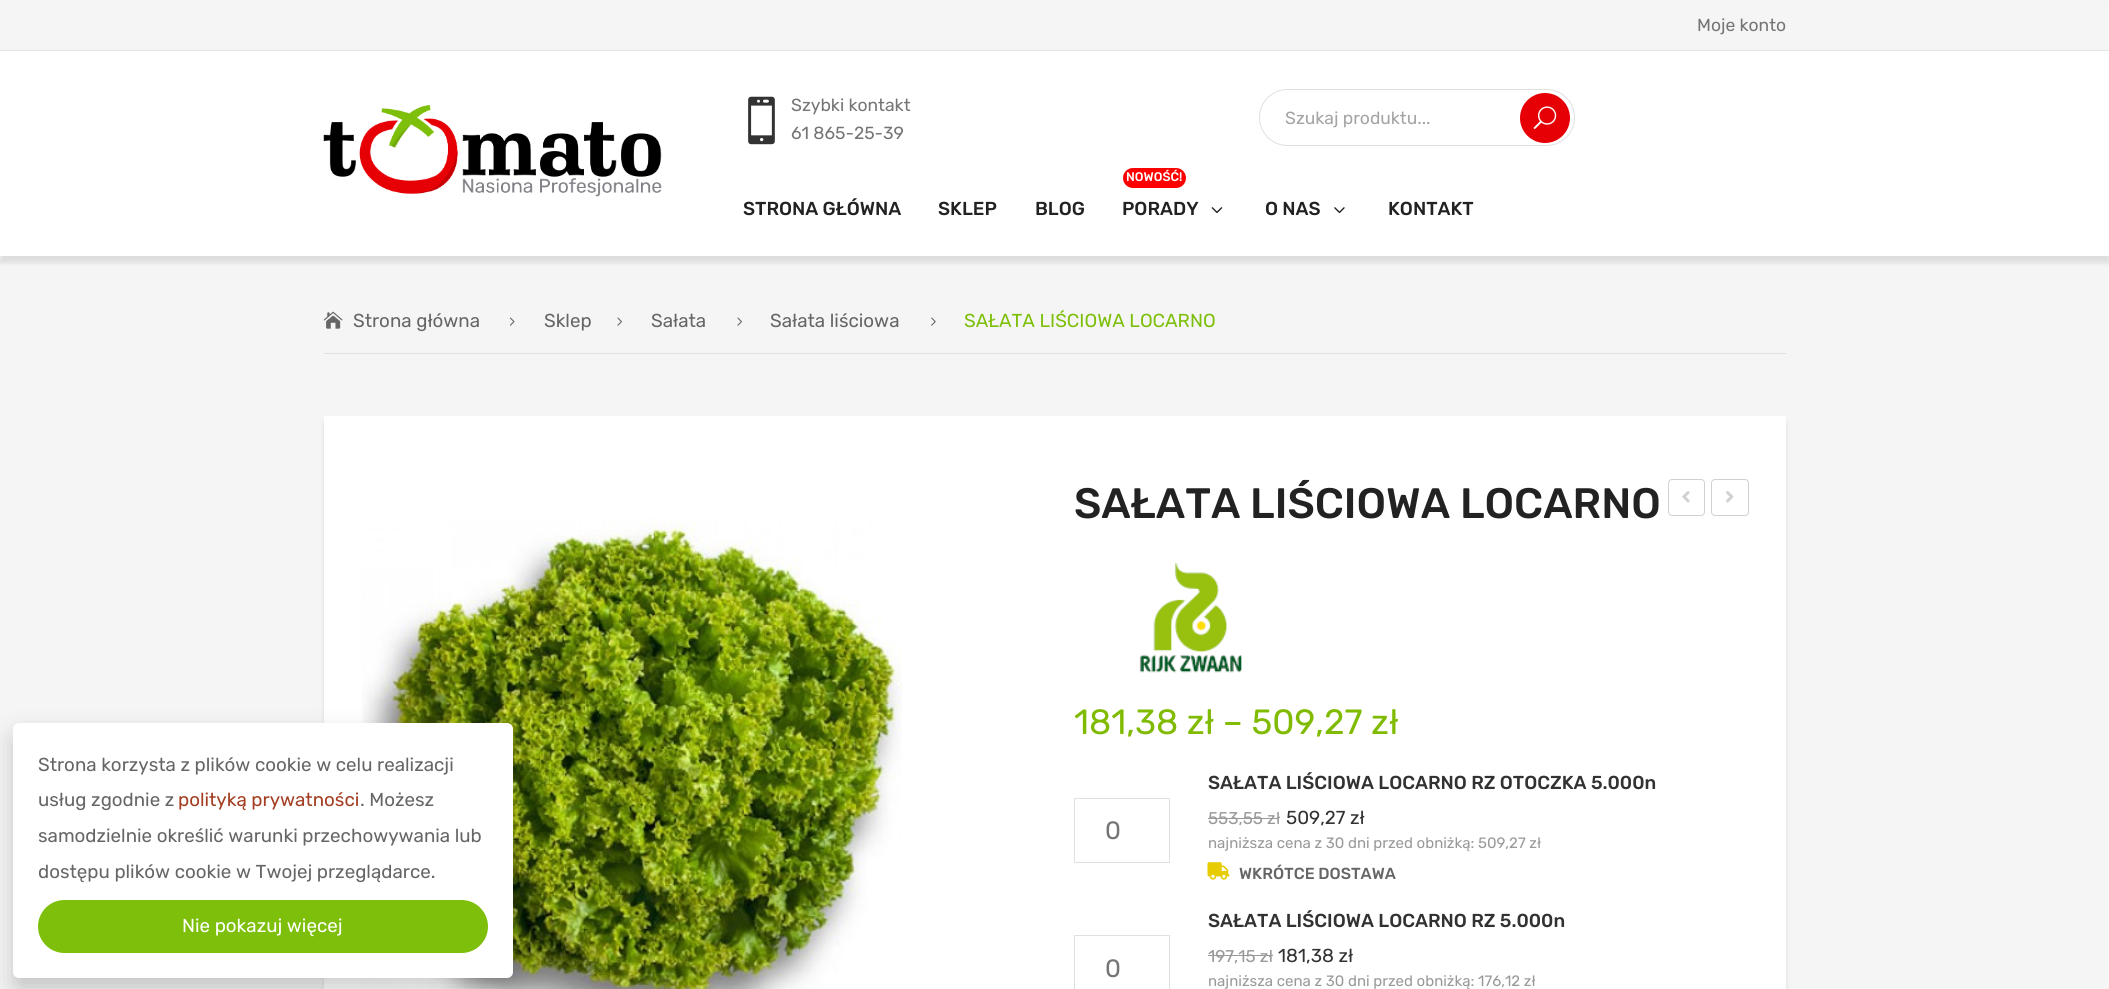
#include <cairo.h>
#include <math.h>
#include <stddef.h>


static void rgb(cairo_t *cr, int r, int g, int b)
{
	cairo_set_source_rgb(cr, r / 255.0, g / 255.0, b / 255.0);
}

static void face(cairo_t *cr, const char *family, double size, int italic, int bold)
{
	cairo_select_font_face(cr, family, italic ? CAIRO_FONT_SLANT_ITALIC : CAIRO_FONT_SLANT_NORMAL,
		bold ? CAIRO_FONT_WEIGHT_BOLD : CAIRO_FONT_WEIGHT_NORMAL);
	cairo_set_font_size(cr, size);
}

static void label(cairo_t *cr, double x, double y, const char *s)
{
	cairo_move_to(cr, x, y);
	cairo_show_text(cr, s);
}

static void rect(cairo_t *cr, double x, double y, double w, double h)
{
	cairo_rectangle(cr, x, y, w, h);
	cairo_fill(cr);
}

static void rrect(cairo_t *cr, double x, double y, double w, double h, double r)
{
	cairo_new_sub_path(cr);
	cairo_arc(cr, x + w - r, y + h - r, r, 0, M_PI / 2);
	cairo_arc(cr, x + r, y + h - r, r, M_PI / 2, M_PI);
	cairo_arc(cr, x + r, y + r, r, M_PI, 1.5 * M_PI);
	cairo_arc(cr, x + w - r, y + r, r, 1.5 * M_PI, 2 * M_PI);
	cairo_close_path(cr);
}

static void soft_shadow(cairo_t *cr, double x, double y, double w, double h, double r, double blur, double alpha)
{
	cairo_push_group_with_content(cr, CAIRO_CONTENT_ALPHA);
	cairo_set_operator(cr, CAIRO_OPERATOR_SOURCE);
	for (int i = 15; i >= -15 && fmin(w, h) + blur * i / 3 > 0; i -= 2) {
		double e = blur * i / 6;
		cairo_set_source_rgba(cr, 0, 0, 0, alpha * erfc((i - 1) / 8.5) / 2);
		rrect(cr, x - e, y - e, w + 2 * e, h + 2 * e, fmax(0, fmin(r + e + blur * .6, fmin(w, h) / 2 + e)));
		cairo_fill(cr);
	}
	cairo_pattern_t *soft = cairo_pop_group(cr);
	cairo_mask(cr, soft);
	cairo_pattern_destroy(soft);
}

static void image(cairo_t *cr, const char *path, double x, double y, double w, double h)
{
	cairo_surface_t *image = cairo_image_surface_create_from_png(path);
	cairo_save(cr);
	cairo_set_source_surface(cr, image, x, y);
	cairo_rectangle(cr, x, y, w, h);
	cairo_fill(cr);
	cairo_restore(cr);
	cairo_surface_destroy(image);
}

static void draw(cairo_t *cr) {
	rgb(cr, 245, 245, 245);
	cairo_paint(cr);
	rgb(cr, 0, 0, 0);
	soft_shadow(cr, 324, 423, 1462, 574, 0, 2.5, 0.1);
	rgb(cr, 255, 255, 255);
	rect(cr, 324, 416, 1462, 573);
	image(cr, "image9.png", 362, 518, 540, 471);
	rgb(cr, 0, 0, 0);
	soft_shadow(cr, 13, 735, 500, 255, 6, 12.5, 0.2);
	rgb(cr, 255, 255, 255);
	rrect(cr, 13, 723, 500, 255, 6);
	cairo_fill(cr);
	face(cr, "Rubik", 18.75, 0, 0);
	rgb(cr, 102, 102, 102);
	label(cr, 38, 771, "Strona korzysta z plików cookie w celu realizacji");
	label(cr, 38, 806, "usług zgodnie z");
	rgb(cr, 164, 61, 33);
	label(cr, 178, 806, "polityką prywatności");
	rgb(cr, 102, 102, 102);
	label(cr, 360, 806, ". Możesz");
	label(cr, 38, 842, "samodzielnie określić warunki przechowywania lub");
	label(cr, 38, 878, "dostępu plików cookie w Twojej przeglądarce.");
	rgb(cr, 125, 191, 10);
	rrect(cr, 38, 900, 450, 53, 26.5);
	cairo_fill(cr);
	rgb(cr, 255, 255, 255);
	label(cr, 182, 932, "Nie pokazuj więcej");
	rgb(cr, 0, 0, 0);
	soft_shadow(cr, 0, 6, 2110, 257, 0, 2.5, 0.1);
	rgb(cr, 255, 255, 255);
	rect(cr, 0, 51, 2109, 205);
	rgb(cr, 245, 245, 245);
	rect(cr, 0, 3, 2109, 47);
	rgb(cr, 229, 229, 229);
	rect(cr, 0, 50, 2109, 1);
	face(cr, "Rubik", 17.5, 0, 0);
	rgb(cr, 117, 117, 117);
	label(cr, 1697, 31, "Moje konto");
	image(cr, "image0.png", 323, 105, 339, 92);
	image(cr, "image1.png", 748, 96, 27, 49);
	label(cr, 791, 111, "Szybki kontakt");
	label(cr, 791, 139, "61 865-25-39");
	rrect(cr, 1259.5, 89.5, 315, 56, 28);
	rgb(cr, 224, 224, 224);
	cairo_set_line_width(cr, 1);
	cairo_stroke(cr);
	rgb(cr, 164, 164, 164);
	label(cr, 1285, 124, "Szukaj produktu...");
	rgb(cr, 230, 0, 5);
	cairo_new_path(cr);
	cairo_arc(cr, 1545, 118, 25, 0, 2 * M_PI);
	cairo_fill(cr);
	image(cr, "image2.png", 1533, 106, 24, 23);
	face(cr, "Rubik Medium", 18.75, 0, 0);
	rgb(cr, 34, 34, 34);
	label(cr, 743, 215, "STRONA GŁÓWNA");
	label(cr, 938, 215, "SKLEP");
	label(cr, 1035, 215, "BLOG");
	rgb(cr, 255, 0, 0);
	rrect(cr, 1123, 168, 63, 20, 10);
	cairo_fill(cr);
	face(cr, "Rubik Medium", 12.5, 0, 0);
	rgb(cr, 255, 255, 255);
	label(cr, 1126, 181, "NOWOŚĆ!");
	face(cr, "Rubik Medium", 18.75, 0, 0);
	rgb(cr, 34, 34, 34);
	label(cr, 1122, 215, "PORADY");
	image(cr, "image3.png", 1211, 207, 12, 7);
	label(cr, 1265, 215, "O NAS");
	image(cr, "image4.png", 1334, 207, 11, 7);
	label(cr, 1388, 215, "KONTAKT");
	rgb(cr, 224, 224, 224);
	rect(cr, 324, 353, 1462, 1);
	image(cr, "image5.png", 323, 311, 20, 18);
	face(cr, "Rubik", 18.75, 0, 0);
	rgb(cr, 102, 102, 102);
	label(cr, 353, 327, "Strona główna");
	image(cr, "image6.png", 509, 317, 6, 9);
	label(cr, 544, 327, "Sklep");
	image(cr, "image7.png", 617, 317, 5, 9);
	label(cr, 651, 327, "Sałata");
	image(cr, "image7.png", 737, 317, 5, 9);
	label(cr, 770, 327, "Sałata liściowa");
	image(cr, "image8.png", 931, 317, 5, 9);
	rgb(cr, 125, 191, 10);
	label(cr, 964, 327, "SAŁATA LIŚCIOWA LOCARNO");
	face(cr, "Rubik Medium", 42.5, 0, 0);
	rgb(cr, 34, 34, 34);
	label(cr, 1074, 518, "SAŁATA LIŚCIOWA LOCARNO");
	rrect(cr, 1668.5, 479.5, 36, 36, 3.5);
	rgb(cr, 209, 209, 209);
	cairo_stroke(cr);
	image(cr, "image10.png", 1682, 491, 8, 12);
	rrect(cr, 1711.5, 479.5, 37, 36, 3.5);
	cairo_stroke(cr);
	image(cr, "image11.png", 1726, 491, 8, 12);
	image(cr, "image12.png", 1139, 562, 103, 111);
	face(cr, "Rubik", 35, 0, 0);
	rgb(cr, 128, 187, 1);
	label(cr, 1074, 734, "181,38 zł – 509,27 zł");
	face(cr, "Rubik Medium", 18.75, 0, 0);
	rgb(cr, 50, 50, 50);
	label(cr, 1208, 789, "SAŁATA LIŚCIOWA LOCARNO RZ OTOCZKA 5.000n");
	cairo_rectangle(cr, 1074.5, 798.5, 95, 64);
	rgb(cr, 224, 224, 224);
	cairo_stroke(cr);
	face(cr, "Rubik", 25, 0, 0);
	rgb(cr, 117, 117, 117);
	label(cr, 1105, 839, "0");
	face(cr, "Rubik", 17, 0, 0);
	rgb(cr, 153, 153, 153);
	label(cr, 1208, 824, "553,55 zł");
	rect(cr, 1208, 818, 71, 1);
	face(cr, "Rubik", 18.75, 0, 0);
	rgb(cr, 50, 50, 50);
	label(cr, 1286, 824, "509,27 zł");
	face(cr, "Rubik", 15, 0, 0);
	rgb(cr, 153, 153, 153);
	label(cr, 1208, 848, "najniższa cena z 30 dni przed obniżką: 509,27 zł");
	image(cr, "image13.png", 1207, 862, 23, 18);
	face(cr, "Rubik Medium", 16, 0, 0);
	rgb(cr, 102, 102, 102);
	label(cr, 1239, 879, "WKRÓTCE DOSTAWA");
	face(cr, "Rubik Medium", 18.75, 0, 0);
	rgb(cr, 50, 50, 50);
	label(cr, 1208, 927, "SAŁATA LIŚCIOWA LOCARNO RZ 5.000n");
	cairo_rectangle(cr, 1074.5, 935.5, 95, 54);
	rgb(cr, 224, 224, 224);
	cairo_stroke(cr);
	face(cr, "Rubik", 25, 0, 0);
	rgb(cr, 117, 117, 117);
	label(cr, 1105, 977, "0");
	face(cr, "Rubik", 17, 0, 0);
	rgb(cr, 153, 153, 153);
	label(cr, 1208, 962, "197,15 zł");
	rect(cr, 1208, 955, 65, 1);
	face(cr, "Rubik", 18.75, 0, 0);
	rgb(cr, 50, 50, 50);
	label(cr, 1278, 962, "181,38 zł");
	face(cr, "Rubik", 15, 0, 0);
	rgb(cr, 153, 153, 153);
	label(cr, 1208, 986, "najniższa cena z 30 dni przed obniżką: 176,12 zł");
}

int main(void) {
	cairo_surface_t *surface = cairo_image_surface_create(CAIRO_FORMAT_RGB24, 2109, 989);
	cairo_t *cr = cairo_create(surface);
	cairo_font_options_t *options = cairo_font_options_create();
	cairo_font_options_set_hint_metrics(options, CAIRO_HINT_METRICS_OFF);
	cairo_font_options_set_hint_style(options, CAIRO_HINT_STYLE_NONE);
	cairo_set_font_options(cr, options);
	cairo_set_miter_limit(cr, 4);
	draw(cr);
	cairo_surface_write_to_png(surface, "render.png");
	cairo_font_options_destroy(options);
	cairo_destroy(cr);
	cairo_surface_destroy(surface);
	return 0;
}
